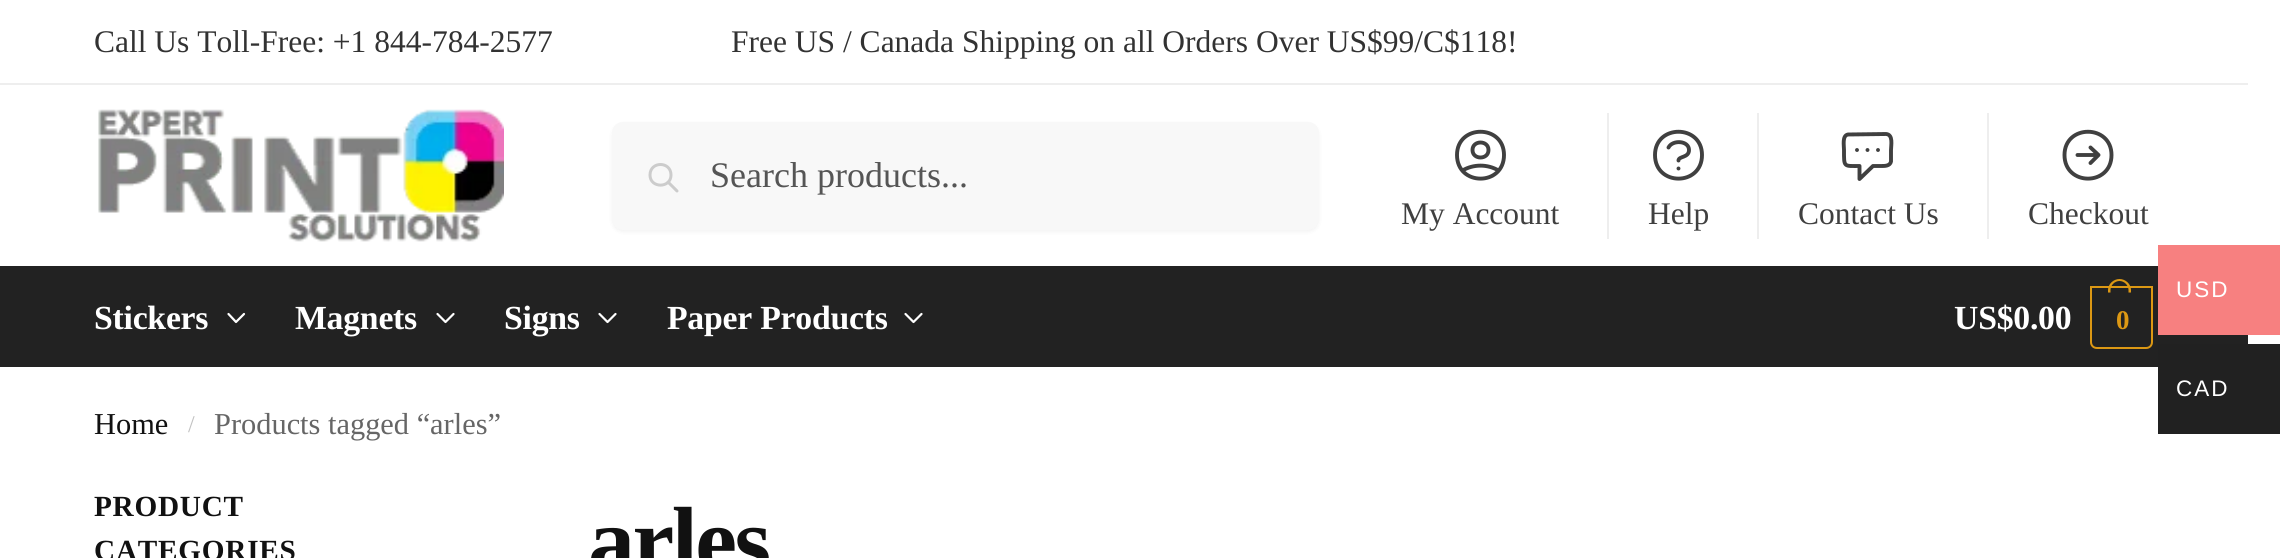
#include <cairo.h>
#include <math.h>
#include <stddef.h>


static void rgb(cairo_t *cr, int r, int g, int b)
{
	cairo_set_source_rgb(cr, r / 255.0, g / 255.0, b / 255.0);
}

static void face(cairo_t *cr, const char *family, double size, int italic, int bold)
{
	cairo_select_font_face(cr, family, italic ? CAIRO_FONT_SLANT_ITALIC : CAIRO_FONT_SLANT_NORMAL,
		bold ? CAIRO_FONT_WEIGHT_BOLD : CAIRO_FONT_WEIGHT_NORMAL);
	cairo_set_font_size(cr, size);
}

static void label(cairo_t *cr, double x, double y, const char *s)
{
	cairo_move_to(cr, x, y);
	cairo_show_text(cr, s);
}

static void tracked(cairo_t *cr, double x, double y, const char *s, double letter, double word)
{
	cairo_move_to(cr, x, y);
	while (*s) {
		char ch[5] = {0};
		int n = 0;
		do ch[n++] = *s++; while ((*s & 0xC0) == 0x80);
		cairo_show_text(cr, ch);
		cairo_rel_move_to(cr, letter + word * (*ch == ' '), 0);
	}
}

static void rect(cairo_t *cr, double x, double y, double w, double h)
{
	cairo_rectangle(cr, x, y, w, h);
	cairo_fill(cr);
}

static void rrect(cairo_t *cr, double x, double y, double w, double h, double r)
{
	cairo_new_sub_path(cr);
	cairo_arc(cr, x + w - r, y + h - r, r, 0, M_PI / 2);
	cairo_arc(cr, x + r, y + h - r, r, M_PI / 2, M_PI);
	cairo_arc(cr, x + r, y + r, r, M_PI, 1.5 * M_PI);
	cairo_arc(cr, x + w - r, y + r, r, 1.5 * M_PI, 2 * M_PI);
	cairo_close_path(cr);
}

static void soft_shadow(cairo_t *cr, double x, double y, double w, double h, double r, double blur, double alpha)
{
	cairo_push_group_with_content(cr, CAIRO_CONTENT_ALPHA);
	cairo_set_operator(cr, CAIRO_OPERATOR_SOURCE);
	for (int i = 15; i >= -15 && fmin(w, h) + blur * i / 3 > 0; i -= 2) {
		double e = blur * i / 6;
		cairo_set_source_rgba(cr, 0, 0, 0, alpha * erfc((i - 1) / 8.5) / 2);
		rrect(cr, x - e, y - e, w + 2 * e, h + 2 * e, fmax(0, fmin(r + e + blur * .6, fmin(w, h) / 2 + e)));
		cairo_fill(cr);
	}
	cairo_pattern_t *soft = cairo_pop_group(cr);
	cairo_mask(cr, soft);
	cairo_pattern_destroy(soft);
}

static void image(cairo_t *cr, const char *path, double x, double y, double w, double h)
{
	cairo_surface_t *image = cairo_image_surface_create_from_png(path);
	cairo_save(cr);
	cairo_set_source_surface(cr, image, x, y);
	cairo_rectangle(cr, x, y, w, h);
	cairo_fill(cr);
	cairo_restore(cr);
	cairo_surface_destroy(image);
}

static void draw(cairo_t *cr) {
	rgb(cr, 255, 255, 255);
	cairo_paint(cr);
	rgb(cr, 238, 238, 238);
	rect(cr, 0, 83, 2248, 2);
	face(cr, "Liberation Serif", 31.5, 0, 0);
	rgb(cr, 50, 50, 50);
	label(cr, 94, 52, "Call Us Toll-Free: +1 844-784-2577");
	label(cr, 731, 52, "Free US / Canada Shipping on all Orders Over US$99/C$118!");
	image(cr, "image0.png", 98, 109, 406, 133);
	rgb(cr, 0, 0, 0);
	soft_shadow(cr, 612, 124, 707, 108, 11, 2, 0.05);
	rgb(cr, 248, 248, 248);
	rrect(cr, 612, 122, 707, 108, 11);
	cairo_fill(cr);
	cairo_new_path(cr);
	cairo_move_to(cr, 677, 191);
	cairo_line_to(cr, 668, 182);
	cairo_move_to(cr, 671, 175);
	cairo_curve_to(cr, 671, 188.5, 650, 188.5, 650, 175);
	cairo_curve_to(cr, 650, 161, 671, 161, 671, 175);
	cairo_close_path(cr);
	rgb(cr, 204, 204, 204);
	cairo_set_line_width(cr, 3);
	cairo_set_line_cap(cr, CAIRO_LINE_CAP_ROUND);
	cairo_set_line_join(cr, CAIRO_LINE_JOIN_ROUND);
	cairo_stroke(cr);
	face(cr, "Liberation Serif", 36, 0, 0);
	rgb(cr, 85, 85, 85);
	label(cr, 710, 187, "Search products...");
	cairo_new_path(cr);
	cairo_move_to(cr, 1462.5, 170.5);
	cairo_curve_to(cr, 1473.5, 164, 1487.5, 164, 1498.5, 170.5);
	cairo_move_to(cr, 1488.5, 150);
	cairo_curve_to(cr, 1488.5, 160, 1472.5, 160, 1472.5, 150);
	cairo_curve_to(cr, 1472.5, 140, 1488.5, 140, 1488.5, 150);
	cairo_close_path(cr);
	cairo_move_to(cr, 1504, 155);
	cairo_curve_to(cr, 1504, 186.5, 1457, 186.5, 1457, 155);
	cairo_curve_to(cr, 1457, 124, 1504, 124, 1504, 155);
	cairo_close_path(cr);
	rgb(cr, 64, 64, 64);
	cairo_set_line_width(cr, 3.9);
	cairo_stroke(cr);
	face(cr, "Liberation Serif", 31.5, 0, 0);
	label(cr, 1401, 224, "My Account");
	rgb(cr, 238, 238, 238);
	rect(cr, 1607, 113, 2, 126);
	cairo_new_path(cr);
	cairo_move_to(cr, 1668.5, 147.5);
	cairo_curve_to(cr, 1672.5, 139.5, 1689, 140.5, 1689, 150);
	cairo_curve_to(cr, 1689, 158, 1678.5, 156, 1678.5, 160.5);
	cairo_move_to(cr, 1678.5, 168.5);
	cairo_line_to(cr, 1678.5, 168.5);
	cairo_move_to(cr, 1702, 155);
	cairo_curve_to(cr, 1702, 186.5, 1655, 186.5, 1655, 155);
	cairo_curve_to(cr, 1655, 124, 1702, 124, 1702, 155);
	cairo_close_path(cr);
	rgb(cr, 64, 64, 64);
	cairo_stroke(cr);
	label(cr, 1648, 224, "Help");
	rgb(cr, 238, 238, 238);
	rect(cr, 1757, 113, 2, 126);
	cairo_new_path(cr);
	cairo_move_to(cr, 1857, 150);
	cairo_line_to(cr, 1857, 150);
	cairo_move_to(cr, 1867.5, 150);
	cairo_line_to(cr, 1867.5, 150);
	cairo_move_to(cr, 1878, 150);
	cairo_line_to(cr, 1878, 150);
	cairo_move_to(cr, 1859.5, 166);
	cairo_curve_to(cr, 1843.5, 166, 1844, 167.5, 1844, 150);
	cairo_curve_to(cr, 1844, 145.5, 1842, 135.5, 1848, 134.5);
	cairo_line_to(cr, 1886, 134);
	cairo_curve_to(cr, 1893.5, 134.5, 1891, 145.5, 1891, 150);
	cairo_line_to(cr, 1891, 161.5);
	cairo_curve_to(cr, 1890, 166, 1885, 166, 1881.5, 166);
	cairo_line_to(cr, 1873, 166);
	cairo_line_to(cr, 1859.5, 179);
	cairo_close_path(cr);
	rgb(cr, 64, 64, 64);
	cairo_stroke(cr);
	label(cr, 1798, 224, "Contact Us");
	rgb(cr, 238, 238, 238);
	rect(cr, 1987, 113, 2, 126);
	cairo_new_path(cr);
	cairo_move_to(cr, 2090.5, 147.5);
	cairo_line_to(cr, 2098.5, 155);
	cairo_move_to(cr, 2098.5, 155);
	cairo_line_to(cr, 2090.5, 163);
	cairo_move_to(cr, 2098.5, 155);
	cairo_line_to(cr, 2077.5, 155);
	cairo_move_to(cr, 2111.5, 155);
	cairo_curve_to(cr, 2111.5, 186.5, 2064.5, 186.5, 2064.5, 155);
	cairo_curve_to(cr, 2064.5, 124, 2111.5, 124, 2111.5, 155);
	cairo_close_path(cr);
	rgb(cr, 64, 64, 64);
	cairo_stroke(cr);
	label(cr, 2028, 224, "Checkout");
	rgb(cr, 34, 34, 34);
	rect(cr, 0, 266, 2248, 101);
	face(cr, "Liberation Serif", 33.75, 0, 1);
	rgb(cr, 255, 255, 255);
	tracked(cr, 94, 329, "Stickers", -0.25, 0);
	cairo_new_path(cr);
	cairo_move_to(cr, 244, 314);
	cairo_line_to(cr, 236, 322);
	cairo_line_to(cr, 228.5, 314);
	cairo_set_line_width(cr, 2.2);
	cairo_stroke(cr);
	tracked(cr, 295, 329, "Magnets", -0.25, 0);
	cairo_new_path(cr);
	cairo_move_to(cr, 453.5, 314);
	cairo_line_to(cr, 445.5, 322);
	cairo_line_to(cr, 437.5, 314);
	cairo_stroke(cr);
	tracked(cr, 504, 329, "Signs", -0.25, 0);
	cairo_new_path(cr);
	cairo_move_to(cr, 615.5, 314);
	cairo_line_to(cr, 607.5, 322);
	cairo_line_to(cr, 599.5, 314);
	cairo_stroke(cr);
	tracked(cr, 667, 329, "Paper Products", -0.25, 0);
	cairo_new_path(cr);
	cairo_move_to(cr, 921.5, 314);
	cairo_line_to(cr, 913.5, 322);
	cairo_line_to(cr, 905.5, 314);
	cairo_stroke(cr);
	tracked(cr, 1954, 329, "US$0.00", -0.25, 0);
	cairo_new_path(cr);
	cairo_move_to(cr, 2091, 287);
	cairo_line_to(cr, 2152, 287);
	cairo_line_to(cr, 2152, 342);
	cairo_curve_to(cr, 2152, 345.5, 2149.5, 348, 2146, 348);
	cairo_line_to(cr, 2097, 348);
	cairo_curve_to(cr, 2093.5, 348, 2091, 345.5, 2091, 342);
	cairo_close_path(cr);
	rgb(cr, 220, 152, 20);
	cairo_set_line_width(cr, 2);
	cairo_set_line_cap(cr, CAIRO_LINE_CAP_BUTT);
	cairo_set_line_join(cr, CAIRO_LINE_JOIN_MITER);
	cairo_stroke(cr);
	cairo_set_fill_rule(cr, CAIRO_FILL_RULE_EVEN_ODD);
	cairo_new_path(cr);
	cairo_move_to(cr, 2119.5, 279);
	cairo_curve_to(cr, 2125.5, 279, 2131, 284, 2131, 290);
	cairo_line_to(cr, 2131, 292.5);
	cairo_line_to(cr, 2108, 292.5);
	cairo_line_to(cr, 2108, 290);
	cairo_curve_to(cr, 2108, 284, 2113.5, 279, 2119.5, 279);
	cairo_close_path(cr);
	cairo_move_to(cr, 2119.5, 281);
	cairo_curve_to(cr, 2124.5, 281, 2128.5, 285.5, 2128.5, 290);
	cairo_line_to(cr, 2128.5, 292.5);
	cairo_line_to(cr, 2110.5, 292.5);
	cairo_line_to(cr, 2110.5, 290);
	cairo_curve_to(cr, 2110.5, 285.5, 2114.5, 281, 2119.5, 281);
	cairo_close_path(cr);
	cairo_fill(cr);
	face(cr, "Liberation Serif", 27, 0, 1);
	tracked(cr, 2116, 329, "0", -2, 0);
	face(cr, "Liberation Serif", 30.4, 0, 0);
	rgb(cr, 17, 17, 17);
	label(cr, 94, 434, "Home");
	face(cr, "Liberation Serif", 24, 0, 0);
	rgb(cr, 194, 194, 194);
	label(cr, 188, 432, "/");
	face(cr, "Liberation Serif", 30.4, 0, 0);
	rgb(cr, 102, 102, 102);
	label(cr, 214, 434, "Products tagged “arles”");
	face(cr, "Liberation Serif", 29.25, 0, 1);
	rgb(cr, 17, 17, 17);
	tracked(cr, 94, 516, "PRODUCT", 0.75, 0);
	tracked(cr, 94, 560, "CATEGORIES", 0.75, 0);
	face(cr, "Liberation Serif", 94, 0, 1);
	tracked(cr, 588, 572, "arles", -2.5, 0);
	rgb(cr, 247, 128, 128);
	rect(cr, 2158, 245, 122, 90);
	face(cr, "Liberation Sans", 22.5, 0, 0);
	rgb(cr, 255, 255, 255);
	tracked(cr, 2176, 297, "USD", 2, 0);
	rgb(cr, 33, 33, 33);
	rect(cr, 2158, 344, 122, 90);
	rgb(cr, 255, 255, 255);
	tracked(cr, 2176, 396, "CAD", 2, 0);
}

int main(void) {
	cairo_surface_t *surface = cairo_image_surface_create(CAIRO_FORMAT_RGB24, 2280, 558);
	cairo_t *cr = cairo_create(surface);
	cairo_font_options_t *options = cairo_font_options_create();
	cairo_font_options_set_hint_metrics(options, CAIRO_HINT_METRICS_OFF);
	cairo_font_options_set_hint_style(options, CAIRO_HINT_STYLE_NONE);
	cairo_set_font_options(cr, options);
	cairo_set_miter_limit(cr, 4);
	draw(cr);
	cairo_surface_write_to_png(surface, "render.png");
	cairo_font_options_destroy(options);
	cairo_destroy(cr);
	cairo_surface_destroy(surface);
	return 0;
}
